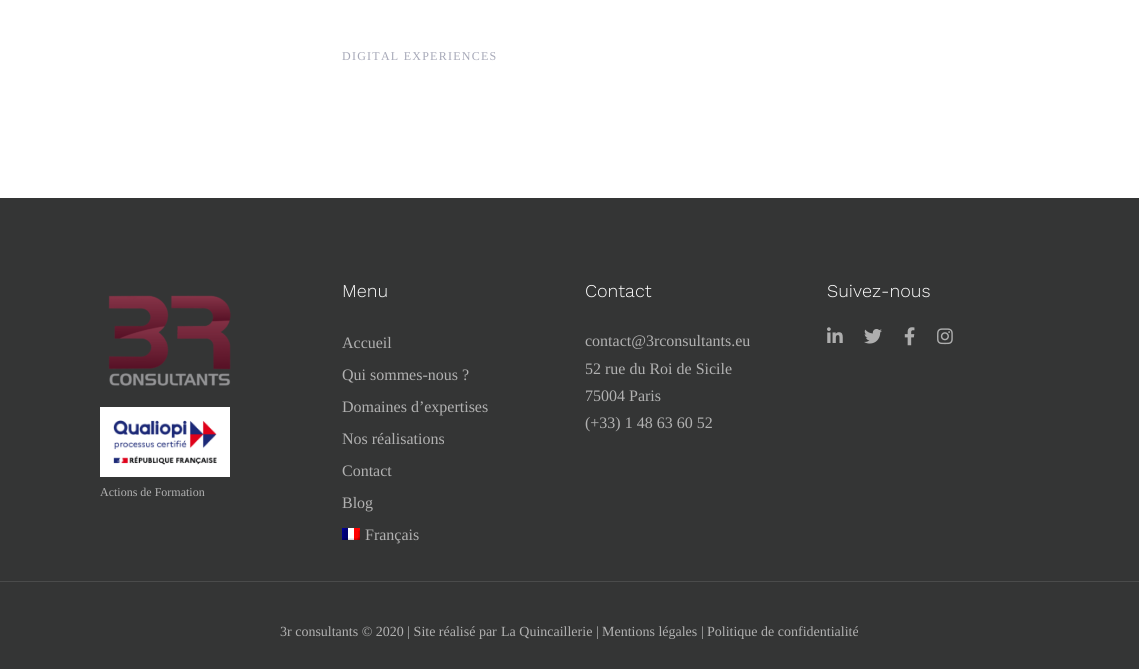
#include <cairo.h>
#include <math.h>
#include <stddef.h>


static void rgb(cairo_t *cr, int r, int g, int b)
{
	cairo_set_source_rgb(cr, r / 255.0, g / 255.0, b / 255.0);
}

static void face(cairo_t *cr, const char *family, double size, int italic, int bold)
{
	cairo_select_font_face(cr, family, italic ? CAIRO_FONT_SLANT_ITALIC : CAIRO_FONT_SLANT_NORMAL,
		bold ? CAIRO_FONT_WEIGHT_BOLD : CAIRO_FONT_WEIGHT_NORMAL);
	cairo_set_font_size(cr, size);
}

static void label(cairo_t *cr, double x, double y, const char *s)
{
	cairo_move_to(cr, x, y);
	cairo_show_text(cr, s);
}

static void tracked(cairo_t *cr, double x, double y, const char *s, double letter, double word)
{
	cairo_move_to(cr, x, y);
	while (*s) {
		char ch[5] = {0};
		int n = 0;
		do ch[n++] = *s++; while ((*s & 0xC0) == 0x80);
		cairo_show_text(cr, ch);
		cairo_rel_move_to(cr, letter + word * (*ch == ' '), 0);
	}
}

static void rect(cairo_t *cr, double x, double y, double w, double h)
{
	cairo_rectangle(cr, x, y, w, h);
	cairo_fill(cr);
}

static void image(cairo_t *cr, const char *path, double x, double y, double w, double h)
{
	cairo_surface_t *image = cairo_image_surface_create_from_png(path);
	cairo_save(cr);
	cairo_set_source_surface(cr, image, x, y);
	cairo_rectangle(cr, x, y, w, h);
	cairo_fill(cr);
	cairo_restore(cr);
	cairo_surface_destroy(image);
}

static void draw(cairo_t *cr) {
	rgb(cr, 255, 255, 255);
	cairo_paint(cr);
	face(cr, "Liberation Serif", 12, 0, 0);
	rgb(cr, 167, 169, 184);
	tracked(cr, 342, 60, "DIGITAL EXPERIENCES", 1.25, 0);
	rgb(cr, 52, 53, 53);
	rect(cr, 0, 198, 1139, 471);
	image(cr, "image0.png", 108, 295, 123, 91);
	image(cr, "image1.png", 100, 407, 130, 70);
	rgb(cr, 177, 177, 177);
	label(cr, 100, 496, "Actions de Formation");
	face(cr, "Work Sans Light", 18, 0, 0);
	rgb(cr, 255, 255, 255);
	label(cr, 342, 297, "Menu");
	face(cr, "Liberation Serif", 16, 0, 0);
	rgb(cr, 177, 177, 177);
	label(cr, 342, 348, "Accueil");
	label(cr, 342, 380, "Qui sommes-nous ?");
	label(cr, 342, 412, "Domaines d’expertises");
	label(cr, 342, 444, "Nos réalisations");
	label(cr, 342, 476, "Contact");
	label(cr, 342, 508, "Blog");
	image(cr, "image2.png", 342, 528, 18, 12);
	label(cr, 365, 540, "Français");
	face(cr, "Work Sans Light", 18, 0, 0);
	rgb(cr, 255, 255, 255);
	label(cr, 585, 297, "Contact");
	face(cr, "Liberation Serif", 16, 0, 0);
	rgb(cr, 177, 177, 177);
	label(cr, 585, 346, "contact@3rconsultants.eu");
	label(cr, 585, 374, "52 rue du Roi de Sicile");
	label(cr, 585, 401, "75004 Paris");
	label(cr, 585, 428, "(+33) 1 48 63 60 52");
	face(cr, "Work Sans Light", 18, 0, 0);
	rgb(cr, 255, 255, 255);
	label(cr, 827, 297, "Suivez-nous");
	image(cr, "image3.png", 827, 327, 16, 16);
	image(cr, "image4.png", 864, 329, 18, 15);
	image(cr, "image5.png", 904, 327, 11, 19);
	image(cr, "image6.png", 937, 328, 16, 17);
	rgb(cr, 74, 75, 75);
	rect(cr, 0, 581, 1139, 1);
	face(cr, "Liberation Serif", 14, 0, 0);
	rgb(cr, 177, 177, 177);
	label(cr, 280, 636, "3r consultants © 2020 | Site réalisé par");
	label(cr, 501, 636, "La Quincaillerie");
	label(cr, 596, 636, "|");
	label(cr, 602, 636, "Mentions légales");
	label(cr, 701, 636, "|");
	label(cr, 707, 636, "Politique de confidentialité");
}

int main(void) {
	cairo_surface_t *surface = cairo_image_surface_create(CAIRO_FORMAT_RGB24, 1139, 669);
	cairo_t *cr = cairo_create(surface);
	cairo_font_options_t *options = cairo_font_options_create();
	cairo_font_options_set_hint_metrics(options, CAIRO_HINT_METRICS_OFF);
	cairo_font_options_set_hint_style(options, CAIRO_HINT_STYLE_NONE);
	cairo_set_font_options(cr, options);
	cairo_set_miter_limit(cr, 4);
	draw(cr);
	cairo_surface_write_to_png(surface, "render.png");
	cairo_font_options_destroy(options);
	cairo_destroy(cr);
	cairo_surface_destroy(surface);
	return 0;
}
